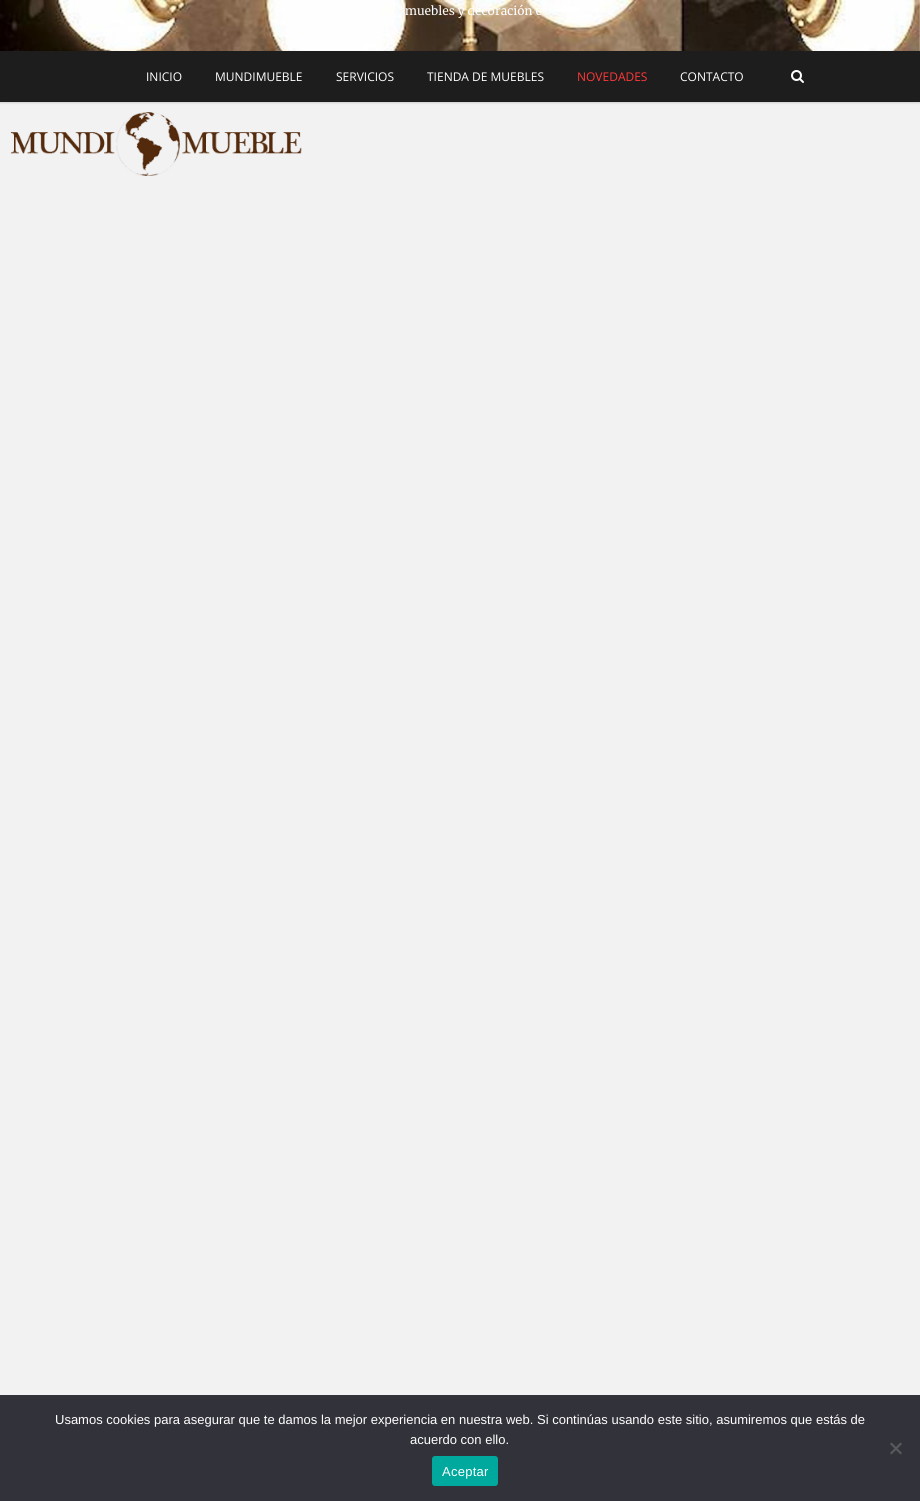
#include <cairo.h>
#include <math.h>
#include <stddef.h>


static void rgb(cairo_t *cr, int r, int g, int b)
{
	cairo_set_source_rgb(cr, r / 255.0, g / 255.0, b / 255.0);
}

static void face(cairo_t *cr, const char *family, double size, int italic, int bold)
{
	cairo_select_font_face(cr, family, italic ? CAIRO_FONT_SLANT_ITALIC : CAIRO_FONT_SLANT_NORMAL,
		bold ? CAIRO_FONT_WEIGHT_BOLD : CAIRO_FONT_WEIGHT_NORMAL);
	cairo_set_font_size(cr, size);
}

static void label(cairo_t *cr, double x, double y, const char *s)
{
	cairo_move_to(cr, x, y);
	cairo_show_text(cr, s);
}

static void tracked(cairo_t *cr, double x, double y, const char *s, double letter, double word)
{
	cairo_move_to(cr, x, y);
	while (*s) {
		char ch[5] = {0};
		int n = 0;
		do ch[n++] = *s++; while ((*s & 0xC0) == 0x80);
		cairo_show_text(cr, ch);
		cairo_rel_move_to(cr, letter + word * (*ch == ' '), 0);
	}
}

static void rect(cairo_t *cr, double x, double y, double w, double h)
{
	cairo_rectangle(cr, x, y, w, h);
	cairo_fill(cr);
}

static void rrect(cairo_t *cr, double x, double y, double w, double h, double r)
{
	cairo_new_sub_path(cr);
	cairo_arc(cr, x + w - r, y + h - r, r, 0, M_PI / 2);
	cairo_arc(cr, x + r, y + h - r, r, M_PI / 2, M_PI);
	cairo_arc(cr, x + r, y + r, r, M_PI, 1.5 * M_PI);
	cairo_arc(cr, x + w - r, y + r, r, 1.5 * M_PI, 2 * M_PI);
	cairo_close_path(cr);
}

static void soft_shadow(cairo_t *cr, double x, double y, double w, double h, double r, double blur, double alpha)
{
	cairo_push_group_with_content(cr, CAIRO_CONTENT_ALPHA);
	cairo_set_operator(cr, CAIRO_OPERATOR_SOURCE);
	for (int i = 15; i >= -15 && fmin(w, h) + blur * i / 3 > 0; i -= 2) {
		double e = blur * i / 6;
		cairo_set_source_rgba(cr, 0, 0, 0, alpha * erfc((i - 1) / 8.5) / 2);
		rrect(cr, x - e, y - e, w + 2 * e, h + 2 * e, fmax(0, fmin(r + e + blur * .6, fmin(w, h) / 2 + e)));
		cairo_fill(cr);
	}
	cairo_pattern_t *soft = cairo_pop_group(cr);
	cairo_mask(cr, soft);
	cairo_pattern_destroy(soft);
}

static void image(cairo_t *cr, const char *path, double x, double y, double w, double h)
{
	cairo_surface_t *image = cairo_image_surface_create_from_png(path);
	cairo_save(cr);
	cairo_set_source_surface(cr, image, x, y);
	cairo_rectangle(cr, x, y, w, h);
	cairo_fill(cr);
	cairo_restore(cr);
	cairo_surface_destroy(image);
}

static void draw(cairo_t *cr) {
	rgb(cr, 255, 255, 255);
	cairo_paint(cr);
	image(cr, "image0.png", 0, 0, 920, 51);
	face(cr, "Merriweather", 12, 0, 0);
	rgb(cr, 255, 255, 255);
	label(cr, 405, 15, "muebles y decoración e");
	rgb(cr, 242, 242, 242);
	rect(cr, 0, 102, 920, 1293);
	rgb(cr, 0, 0, 0);
	soft_shadow(cr, 0, 52, 920, 51, 0, 1, 0.15);
	rgb(cr, 29, 29, 29);
	rect(cr, 0, 51, 920, 51);
	face(cr, "Open Sans", 12, 0, 0);
	rgb(cr, 255, 255, 255);
	label(cr, 146, 81, "INICIO");
	label(cr, 215, 81, "MUNDIMUEBLE");
	label(cr, 336, 81, "SERVICIOS");
	label(cr, 427, 81, "TIENDA DE MUEBLES");
	rgb(cr, 255, 56, 56);
	label(cr, 577, 81, "NOVEDADES");
	rgb(cr, 255, 255, 255);
	label(cr, 680, 81, "CONTACTO");
	image(cr, "image1.png", 791, 70, 13, 13);
	image(cr, "image2.png", 10, 112, 292, 64);
	rgb(cr, 50, 50, 58);
	rect(cr, 0, 1395, 920, 106);
	face(cr, "Liberation Sans", 13, 0, 0);
	rgb(cr, 255, 255, 255);
	label(cr, 55, 1424, "Usamos cookies para asegurar que te damos la mejor experiencia en nuestra web. Si continúas usando este sitio, asumiremos que estás de");
	label(cr, 410, 1444, "acuerdo con ello.");
	rgb(cr, 89, 89, 93);
	cairo_new_path(cr);
	cairo_move_to(cr, 900.5, 1442.5);
	cairo_line_to(cr, 902, 1444);
	cairo_line_to(cr, 891.5, 1454.5);
	cairo_line_to(cr, 890, 1453);
	cairo_close_path(cr);
	cairo_fill(cr);
	cairo_new_path(cr);
	cairo_move_to(cr, 890, 1444);
	cairo_line_to(cr, 891.5, 1442.5);
	cairo_line_to(cr, 902, 1453);
	cairo_line_to(cr, 900.5, 1454.5);
	cairo_close_path(cr);
	cairo_fill(cr);
	rgb(cr, 0, 169, 157);
	rrect(cr, 432, 1456, 66, 30, 3);
	cairo_fill(cr);
	rgb(cr, 255, 255, 255);
	tracked(cr, 442, 1476, "Aceptar", 0.25, 0);
}

int main(void) {
	cairo_surface_t *surface = cairo_image_surface_create(CAIRO_FORMAT_RGB24, 920, 1501);
	cairo_t *cr = cairo_create(surface);
	cairo_font_options_t *options = cairo_font_options_create();
	cairo_font_options_set_hint_metrics(options, CAIRO_HINT_METRICS_OFF);
	cairo_font_options_set_hint_style(options, CAIRO_HINT_STYLE_NONE);
	cairo_set_font_options(cr, options);
	cairo_set_miter_limit(cr, 4);
	draw(cr);
	cairo_surface_write_to_png(surface, "render.png");
	cairo_font_options_destroy(options);
	cairo_destroy(cr);
	cairo_surface_destroy(surface);
	return 0;
}
